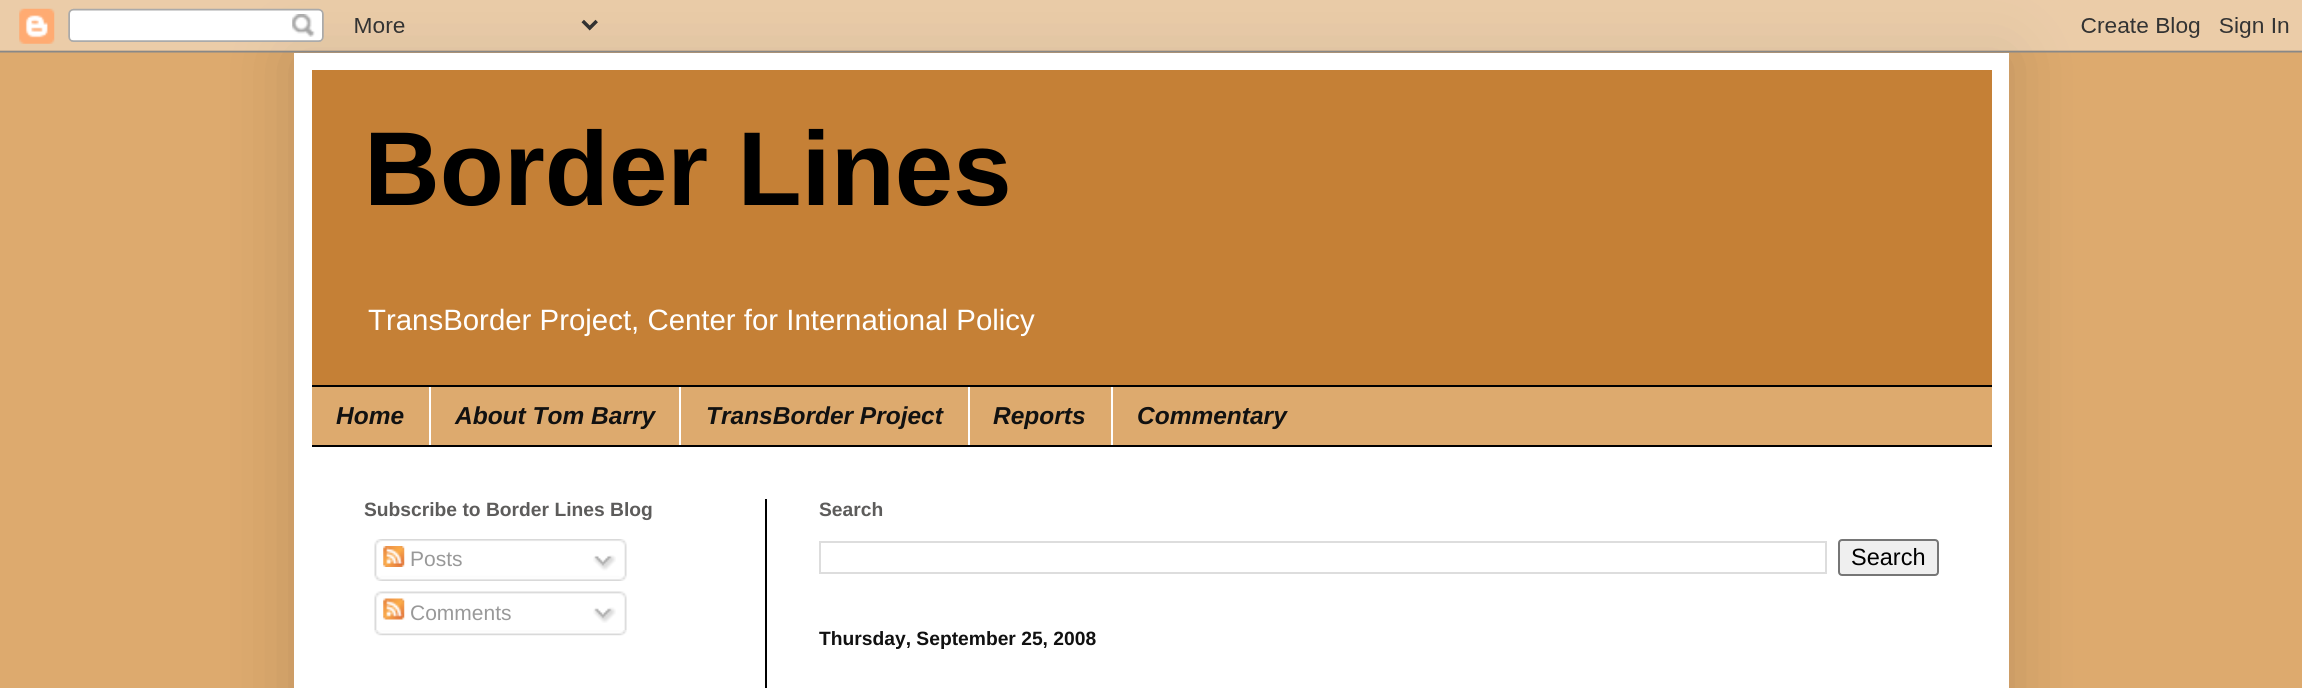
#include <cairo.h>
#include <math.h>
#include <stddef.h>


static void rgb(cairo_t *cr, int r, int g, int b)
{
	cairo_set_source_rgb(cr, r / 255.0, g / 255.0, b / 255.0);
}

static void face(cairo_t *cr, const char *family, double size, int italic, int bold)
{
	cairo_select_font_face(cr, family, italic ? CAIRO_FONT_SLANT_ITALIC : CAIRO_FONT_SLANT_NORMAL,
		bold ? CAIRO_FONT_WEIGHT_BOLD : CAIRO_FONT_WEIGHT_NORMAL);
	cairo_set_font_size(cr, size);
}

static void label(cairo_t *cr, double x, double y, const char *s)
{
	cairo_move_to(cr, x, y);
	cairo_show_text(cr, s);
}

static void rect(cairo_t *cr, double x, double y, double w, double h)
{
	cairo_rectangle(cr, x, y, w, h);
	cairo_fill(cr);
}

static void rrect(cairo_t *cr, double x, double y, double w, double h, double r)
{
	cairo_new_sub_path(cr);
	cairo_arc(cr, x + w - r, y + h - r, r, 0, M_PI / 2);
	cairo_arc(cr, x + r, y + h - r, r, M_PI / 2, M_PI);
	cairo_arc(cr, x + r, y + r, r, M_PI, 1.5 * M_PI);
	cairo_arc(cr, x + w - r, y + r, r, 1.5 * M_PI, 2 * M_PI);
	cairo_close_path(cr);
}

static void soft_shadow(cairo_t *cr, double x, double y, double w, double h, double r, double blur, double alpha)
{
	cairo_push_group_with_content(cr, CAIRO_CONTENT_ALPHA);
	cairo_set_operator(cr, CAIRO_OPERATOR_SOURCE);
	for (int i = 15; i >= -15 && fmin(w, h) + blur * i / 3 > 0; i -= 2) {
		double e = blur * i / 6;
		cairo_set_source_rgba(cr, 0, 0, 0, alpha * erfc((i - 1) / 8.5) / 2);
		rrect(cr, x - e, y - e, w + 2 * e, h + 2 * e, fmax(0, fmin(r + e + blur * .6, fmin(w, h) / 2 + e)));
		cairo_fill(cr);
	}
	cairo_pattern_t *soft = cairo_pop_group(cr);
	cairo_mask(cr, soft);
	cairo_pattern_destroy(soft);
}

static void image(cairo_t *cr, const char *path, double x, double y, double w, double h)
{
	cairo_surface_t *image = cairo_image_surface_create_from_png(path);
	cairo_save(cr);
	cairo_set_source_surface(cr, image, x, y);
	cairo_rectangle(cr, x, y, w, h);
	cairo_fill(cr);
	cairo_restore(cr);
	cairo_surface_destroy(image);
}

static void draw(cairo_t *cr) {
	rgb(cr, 221, 170, 110);
	cairo_paint(cr);
	rgb(cr, 0, 0, 0);
	soft_shadow(cr, 294, 53, 1715, 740, 0, 35, 0.15);
	image(cr, "image0.png", 0, 0, 2302, 53);
	rgb(cr, 255, 255, 255);
	rect(cr, 294, 53, 1715, 635);
	rgb(cr, 197, 128, 54);
	rect(cr, 312, 70, 1680, 315);
	face(cr, "Liberation Sans", 105, 0, 1);
	rgb(cr, 0, 0, 0);
	label(cr, 364, 205, "Border Lines");
	face(cr, "Liberation Sans", 29.4, 0, 0);
	rgb(cr, 255, 255, 255);
	label(cr, 368, 330, "TransBorder Project, Center for International Policy");
	rgb(cr, 221, 170, 110);
	rect(cr, 312, 387, 1680, 58);
	rgb(cr, 0, 0, 0);
	rect(cr, 312, 385, 1680, 2);
	rect(cr, 312, 445, 1680, 2);
	face(cr, "Liberation Sans", 24.5, 1, 1);
	rgb(cr, 17, 17, 17);
	label(cr, 336, 424, "Home");
	rgb(cr, 255, 255, 255);
	rect(cr, 429, 387, 2, 58);
	rgb(cr, 17, 17, 17);
	label(cr, 455, 424, "About Tom Barry");
	rgb(cr, 255, 255, 255);
	rect(cr, 679, 387, 2, 58);
	rgb(cr, 17, 17, 17);
	label(cr, 706, 424, "TransBorder Project");
	rgb(cr, 255, 255, 255);
	rect(cr, 968, 387, 2, 58);
	rgb(cr, 17, 17, 17);
	label(cr, 993, 424, "Reports");
	rgb(cr, 255, 255, 255);
	rect(cr, 1111, 387, 2, 58);
	rgb(cr, 17, 17, 17);
	label(cr, 1137, 424, "Commentary");
	rgb(cr, 0, 0, 0);
	rect(cr, 765, 499, 2, 189);
	face(cr, "Liberation Sans", 19.25, 0, 1);
	rgb(cr, 93, 92, 91);
	label(cr, 364, 516, "Subscribe to Border Lines Blog");
	image(cr, "image1.png", 374, 539, 253, 37);
	image(cr, "image2.png", 383, 546, 22, 21);
	face(cr, "Liberation Sans", 21, 0, 0);
	rgb(cr, 153, 153, 153);
	label(cr, 410, 566, "Posts");
	image(cr, "image3.png", 593, 555, 23, 16);
	image(cr, "image4.png", 374, 575, 253, 6);
	image(cr, "image5.png", 374, 591, 253, 39);
	image(cr, "image6.png", 383, 598, 22, 22);
	label(cr, 410, 620, "Comments");
	image(cr, "image7.png", 593, 607, 23, 16);
	image(cr, "image8.png", 374, 630, 253, 6);
	face(cr, "Liberation Sans", 19.25, 0, 1);
	rgb(cr, 93, 92, 91);
	label(cr, 819, 516, "Search");
	cairo_rectangle(cr, 820, 542, 1006, 31);
	rgb(cr, 221, 221, 221);
	cairo_stroke(cr);
	rgb(cr, 239, 239, 239);
	rrect(cr, 1839, 540, 99, 35, 3);
	cairo_fill_preserve(cr);
	rgb(cr, 118, 118, 118);
	cairo_stroke(cr);
	face(cr, "Liberation Sans", 23.5, 0, 0);
	rgb(cr, 0, 0, 0);
	label(cr, 1851, 565, "Search");
	face(cr, "Liberation Sans", 19.25, 0, 1);
	rgb(cr, 17, 17, 17);
	label(cr, 819, 645, "Thursday, September 25, 2008");
}

int main(void) {
	cairo_surface_t *surface = cairo_image_surface_create(CAIRO_FORMAT_RGB24, 2302, 688);
	cairo_t *cr = cairo_create(surface);
	cairo_font_options_t *options = cairo_font_options_create();
	cairo_font_options_set_hint_metrics(options, CAIRO_HINT_METRICS_OFF);
	cairo_font_options_set_hint_style(options, CAIRO_HINT_STYLE_NONE);
	cairo_set_font_options(cr, options);
	cairo_set_miter_limit(cr, 4);
	draw(cr);
	cairo_surface_write_to_png(surface, "render.png");
	cairo_font_options_destroy(options);
	cairo_destroy(cr);
	cairo_surface_destroy(surface);
	return 0;
}
